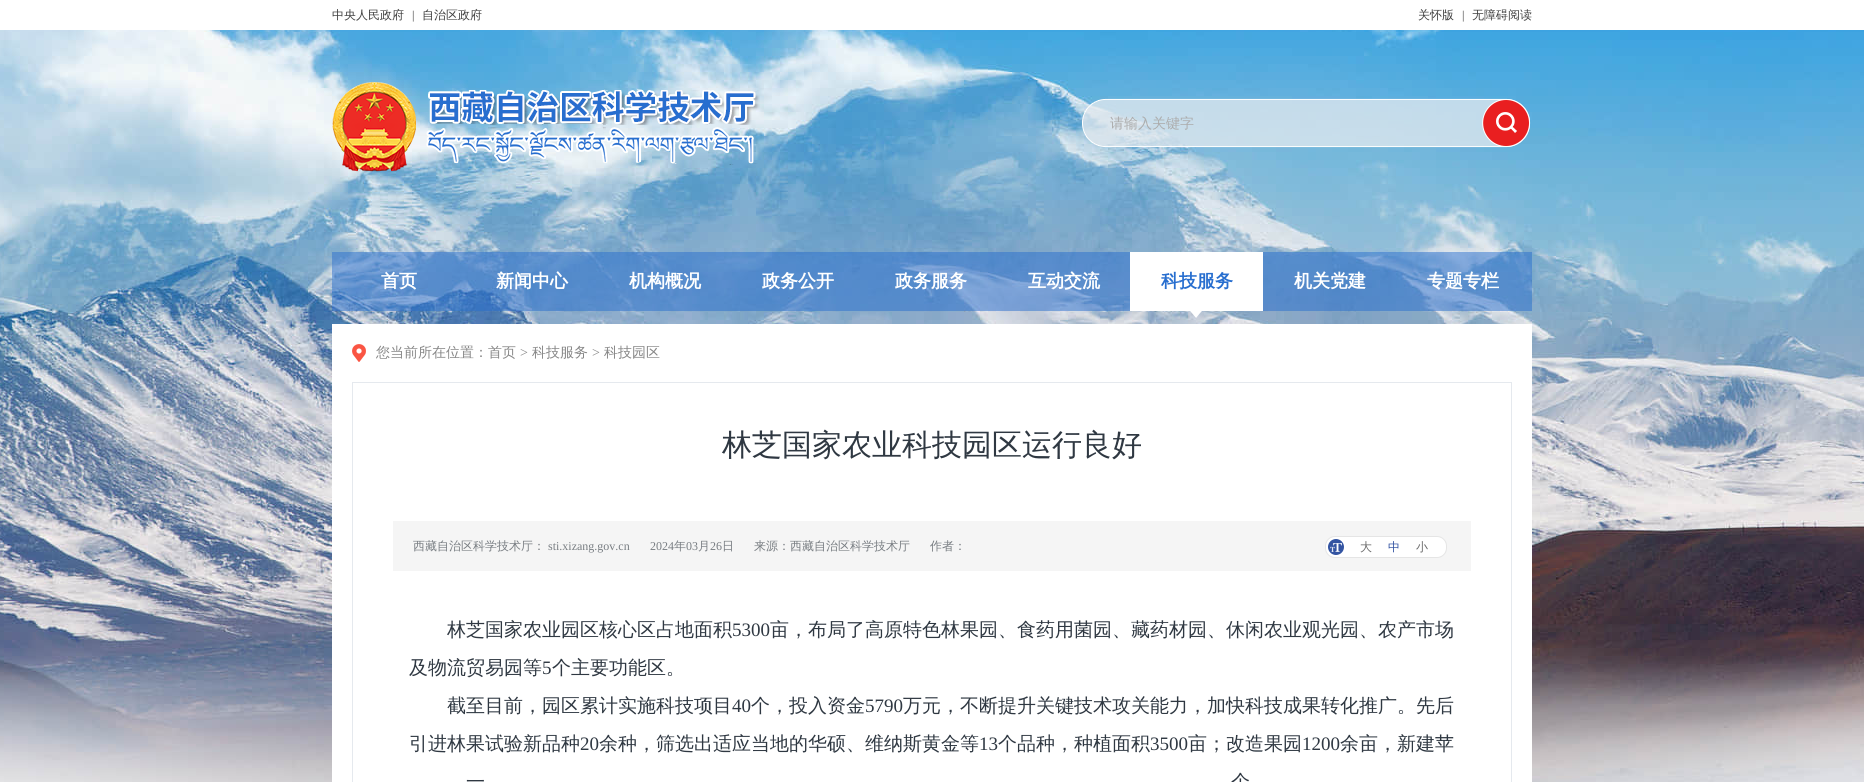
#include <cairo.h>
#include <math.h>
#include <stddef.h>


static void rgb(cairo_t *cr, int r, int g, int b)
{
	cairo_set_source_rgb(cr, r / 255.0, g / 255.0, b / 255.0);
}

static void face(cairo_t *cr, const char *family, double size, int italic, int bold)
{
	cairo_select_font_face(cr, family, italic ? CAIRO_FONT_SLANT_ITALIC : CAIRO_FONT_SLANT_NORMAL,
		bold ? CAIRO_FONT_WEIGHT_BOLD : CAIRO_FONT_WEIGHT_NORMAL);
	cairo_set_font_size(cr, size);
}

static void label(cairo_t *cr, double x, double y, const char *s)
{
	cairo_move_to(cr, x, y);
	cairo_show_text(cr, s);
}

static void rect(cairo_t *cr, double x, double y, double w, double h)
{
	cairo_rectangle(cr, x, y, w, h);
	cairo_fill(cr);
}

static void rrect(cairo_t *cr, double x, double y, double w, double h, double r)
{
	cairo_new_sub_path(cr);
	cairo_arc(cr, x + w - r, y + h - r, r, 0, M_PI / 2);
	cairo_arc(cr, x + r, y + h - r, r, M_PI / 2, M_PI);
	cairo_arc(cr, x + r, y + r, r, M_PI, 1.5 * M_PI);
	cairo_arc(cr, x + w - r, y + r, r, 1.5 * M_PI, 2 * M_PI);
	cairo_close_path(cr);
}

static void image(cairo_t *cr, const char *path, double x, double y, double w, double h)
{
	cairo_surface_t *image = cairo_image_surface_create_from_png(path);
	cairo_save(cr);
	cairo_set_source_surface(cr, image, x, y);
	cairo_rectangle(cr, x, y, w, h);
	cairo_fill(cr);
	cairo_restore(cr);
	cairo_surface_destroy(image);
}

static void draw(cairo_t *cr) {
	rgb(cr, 255, 255, 255);
	cairo_paint(cr);
	image(cr, "image0.png", 0, 30, 1864, 752);
	face(cr, "WenQuanYi Zen Hei Medium", 12, 0, 0);
	rgb(cr, 63, 63, 63);
	label(cr, 332, 19, "中央人民政府");
	face(cr, "Liberation Serif", 12, 0, 0);
	label(cr, 412, 19, "|");
	face(cr, "WenQuanYi Zen Hei Medium", 12, 0, 0);
	label(cr, 422, 19, "自治区政府");
	label(cr, 1418, 19, "关怀版");
	face(cr, "Liberation Serif", 12, 0, 0);
	label(cr, 1462, 19, "|");
	face(cr, "WenQuanYi Zen Hei Medium", 12, 0, 0);
	label(cr, 1472, 19, "无障碍阅读");
	image(cr, "image1.png", 332, 82, 428, 90);
	image(cr, "image2.png", 1082, 98, 449, 50);
	face(cr, "WenQuanYi Zen Hei Medium", 14, 0, 0);
	rgb(cr, 172, 172, 172);
	label(cr, 1110, 128, "请输入关键字");
	image(cr, "image3.png", 1482, 99, 48, 48);
	cairo_set_source_rgba(cr, 0.157, 0.431, 0.812, 0.5);
	rect(cr, 332, 252, 1200, 59);
	face(cr, "WenQuanYi Zen Hei", 18, 0, 1);
	rgb(cr, 255, 255, 255);
	label(cr, 381, 287, "首页");
	label(cr, 496, 287, "新闻中心");
	label(cr, 629, 287, "机构概况");
	label(cr, 762, 287, "政务公开");
	label(cr, 895, 287, "政务服务");
	label(cr, 1028, 287, "互动交流");
	rect(cr, 1130, 252, 133, 59);
	rgb(cr, 39, 110, 207);
	label(cr, 1161, 287, "科技服务");
	image(cr, "image4.png", 1190, 311, 12, 7);
	rgb(cr, 255, 255, 255);
	label(cr, 1294, 287, "机关党建");
	label(cr, 1427, 287, "专题专栏");
	rect(cr, 332, 324, 1200, 458);
	image(cr, "image5.png", 352, 344, 14, 18);
	face(cr, "WenQuanYi Zen Hei Medium", 14, 0, 0);
	rgb(cr, 135, 135, 135);
	label(cr, 376, 357, "您当前所在位置：首页");
	face(cr, "Liberation Serif", 14, 0, 0);
	label(cr, 520, 357, ">");
	face(cr, "WenQuanYi Zen Hei Medium", 14, 0, 0);
	label(cr, 532, 357, "科技服务");
	face(cr, "Liberation Serif", 14, 0, 0);
	label(cr, 592, 357, ">");
	face(cr, "WenQuanYi Zen Hei Medium", 14, 0, 0);
	label(cr, 604, 357, "科技园区");
	cairo_rectangle(cr, 352.5, 382.5, 1159, 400);
	rgb(cr, 229, 233, 238);
	cairo_set_line_width(cr, 1);
	cairo_stroke(cr);
	face(cr, "WenQuanYi Zen Hei Medium", 30, 0, 0);
	rgb(cr, 47, 56, 66);
	label(cr, 722, 455, "林芝国家农业科技园区运行良好");
	rgb(cr, 245, 245, 245);
	rect(cr, 393, 521, 1078, 50);
	face(cr, "WenQuanYi Zen Hei Medium", 12, 0, 0);
	rgb(cr, 120, 125, 130);
	label(cr, 413, 550, "西藏自治区科学技术厅：");
	face(cr, "Liberation Serif", 12, 0, 0);
	label(cr, 548, 550, "sti.xizang.gov.cn");
	label(cr, 650, 550, "2024");
	face(cr, "WenQuanYi Zen Hei Medium", 12, 0, 0);
	label(cr, 674, 550, "年");
	face(cr, "Liberation Serif", 12, 0, 0);
	label(cr, 686, 550, "03");
	face(cr, "WenQuanYi Zen Hei Medium", 12, 0, 0);
	label(cr, 698, 550, "月");
	face(cr, "Liberation Serif", 12, 0, 0);
	label(cr, 710, 550, "26");
	face(cr, "WenQuanYi Zen Hei Medium", 12, 0, 0);
	label(cr, 722, 550, "日");
	label(cr, 754, 550, "来源：西藏自治区科学技术厅");
	label(cr, 930, 550, "作者：");
	rgb(cr, 255, 255, 255);
	rrect(cr, 1325.5, 536.5, 121, 21, 9.5);
	cairo_fill_preserve(cr);
	rgb(cr, 229, 229, 229);
	cairo_stroke(cr);
	image(cr, "image6.png", 1328, 539, 16, 16);
	rgb(cr, 106, 106, 106);
	label(cr, 1360, 551, "大");
	rgb(cr, 51, 84, 162);
	label(cr, 1388, 551, "中");
	rgb(cr, 106, 106, 106);
	label(cr, 1416, 551, "小");
	face(cr, "WenQuanYi Zen Hei Medium", 19, 0, 0);
	rgb(cr, 47, 56, 66);
	label(cr, 447, 636, "林芝国家农业园区核心区占地面积");
	face(cr, "Liberation Serif", 19, 0, 0);
	label(cr, 732, 636, "5300");
	face(cr, "WenQuanYi Zen Hei Medium", 19, 0, 0);
	label(cr, 770, 636, "亩，布局了高原特色林果园、食药用菌园、藏药材园、休闲农业观光园、农产市场");
	label(cr, 409, 674, "及物流贸易园等");
	face(cr, "Liberation Serif", 19, 0, 0);
	label(cr, 542, 674, "5");
	face(cr, "WenQuanYi Zen Hei Medium", 19, 0, 0);
	label(cr, 552, 674, "个主要功能区。");
	label(cr, 447, 712, "截至目前，园区累计实施科技项目");
	face(cr, "Liberation Serif", 19, 0, 0);
	label(cr, 732, 712, "40");
	face(cr, "WenQuanYi Zen Hei Medium", 19, 0, 0);
	label(cr, 751, 712, "个，投入资金");
	face(cr, "Liberation Serif", 19, 0, 0);
	label(cr, 865, 712, "5790");
	face(cr, "WenQuanYi Zen Hei Medium", 19, 0, 0);
	label(cr, 903, 712, "万元，不断提升关键技术攻关能力，加快科技成果转化推广。先后");
	label(cr, 409, 750, "引进林果试验新品种");
	face(cr, "Liberation Serif", 19, 0, 0);
	label(cr, 580, 750, "20");
	face(cr, "WenQuanYi Zen Hei Medium", 19, 0, 0);
	label(cr, 599, 750, "余种，筛选出适应当地的华硕、维纳斯黄金等");
	face(cr, "Liberation Serif", 19, 0, 0);
	label(cr, 979, 750, "13");
	face(cr, "WenQuanYi Zen Hei Medium", 19, 0, 0);
	label(cr, 998, 750, "个品种，种植面积");
	face(cr, "Liberation Serif", 19, 0, 0);
	label(cr, 1150, 750, "3500");
	face(cr, "WenQuanYi Zen Hei Medium", 19, 0, 0);
	label(cr, 1188, 750, "亩；改造果园");
	face(cr, "Liberation Serif", 19, 0, 0);
	label(cr, 1302, 750, "1200");
	face(cr, "WenQuanYi Zen Hei Medium", 19, 0, 0);
	label(cr, 1340, 750, "余亩，新建苹");
	label(cr, 466, 788, "一");
	label(cr, 1231, 788, "个");
}

int main(void) {
	cairo_surface_t *surface = cairo_image_surface_create(CAIRO_FORMAT_RGB24, 1864, 782);
	cairo_t *cr = cairo_create(surface);
	cairo_font_options_t *options = cairo_font_options_create();
	cairo_font_options_set_hint_metrics(options, CAIRO_HINT_METRICS_OFF);
	cairo_font_options_set_hint_style(options, CAIRO_HINT_STYLE_NONE);
	cairo_set_font_options(cr, options);
	cairo_set_miter_limit(cr, 4);
	draw(cr);
	cairo_surface_write_to_png(surface, "render.png");
	cairo_font_options_destroy(options);
	cairo_destroy(cr);
	cairo_surface_destroy(surface);
	return 0;
}
